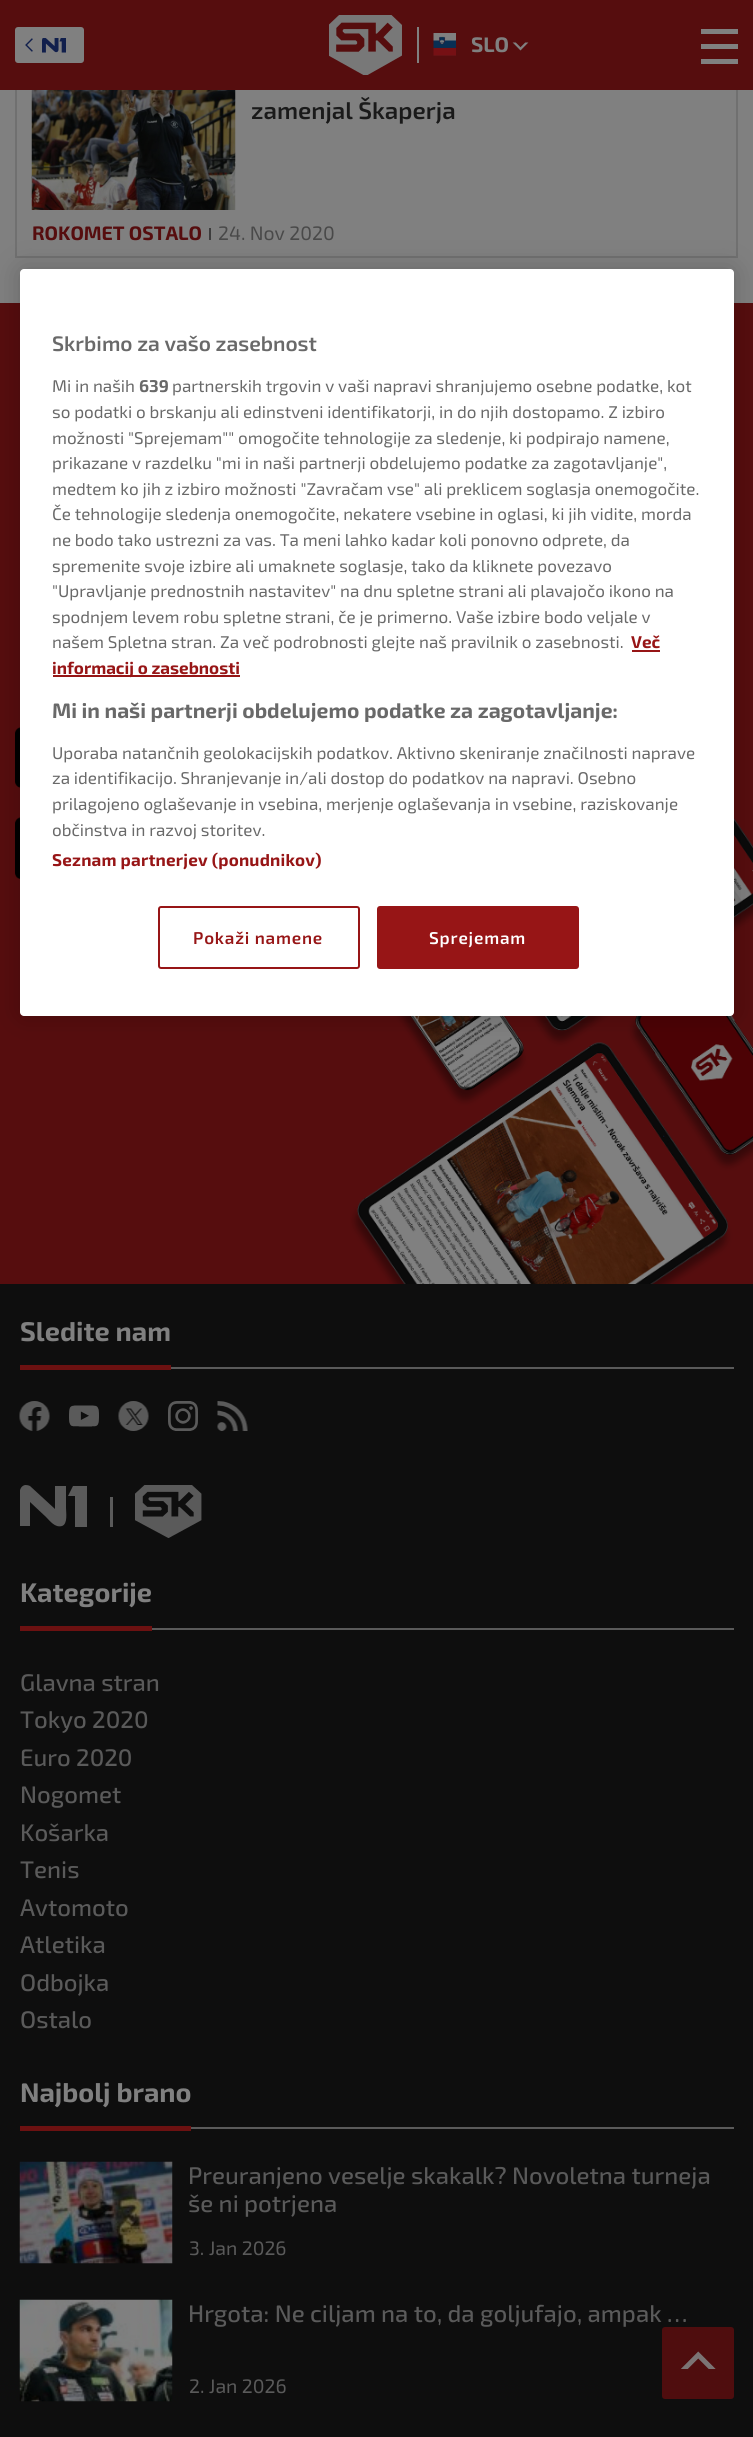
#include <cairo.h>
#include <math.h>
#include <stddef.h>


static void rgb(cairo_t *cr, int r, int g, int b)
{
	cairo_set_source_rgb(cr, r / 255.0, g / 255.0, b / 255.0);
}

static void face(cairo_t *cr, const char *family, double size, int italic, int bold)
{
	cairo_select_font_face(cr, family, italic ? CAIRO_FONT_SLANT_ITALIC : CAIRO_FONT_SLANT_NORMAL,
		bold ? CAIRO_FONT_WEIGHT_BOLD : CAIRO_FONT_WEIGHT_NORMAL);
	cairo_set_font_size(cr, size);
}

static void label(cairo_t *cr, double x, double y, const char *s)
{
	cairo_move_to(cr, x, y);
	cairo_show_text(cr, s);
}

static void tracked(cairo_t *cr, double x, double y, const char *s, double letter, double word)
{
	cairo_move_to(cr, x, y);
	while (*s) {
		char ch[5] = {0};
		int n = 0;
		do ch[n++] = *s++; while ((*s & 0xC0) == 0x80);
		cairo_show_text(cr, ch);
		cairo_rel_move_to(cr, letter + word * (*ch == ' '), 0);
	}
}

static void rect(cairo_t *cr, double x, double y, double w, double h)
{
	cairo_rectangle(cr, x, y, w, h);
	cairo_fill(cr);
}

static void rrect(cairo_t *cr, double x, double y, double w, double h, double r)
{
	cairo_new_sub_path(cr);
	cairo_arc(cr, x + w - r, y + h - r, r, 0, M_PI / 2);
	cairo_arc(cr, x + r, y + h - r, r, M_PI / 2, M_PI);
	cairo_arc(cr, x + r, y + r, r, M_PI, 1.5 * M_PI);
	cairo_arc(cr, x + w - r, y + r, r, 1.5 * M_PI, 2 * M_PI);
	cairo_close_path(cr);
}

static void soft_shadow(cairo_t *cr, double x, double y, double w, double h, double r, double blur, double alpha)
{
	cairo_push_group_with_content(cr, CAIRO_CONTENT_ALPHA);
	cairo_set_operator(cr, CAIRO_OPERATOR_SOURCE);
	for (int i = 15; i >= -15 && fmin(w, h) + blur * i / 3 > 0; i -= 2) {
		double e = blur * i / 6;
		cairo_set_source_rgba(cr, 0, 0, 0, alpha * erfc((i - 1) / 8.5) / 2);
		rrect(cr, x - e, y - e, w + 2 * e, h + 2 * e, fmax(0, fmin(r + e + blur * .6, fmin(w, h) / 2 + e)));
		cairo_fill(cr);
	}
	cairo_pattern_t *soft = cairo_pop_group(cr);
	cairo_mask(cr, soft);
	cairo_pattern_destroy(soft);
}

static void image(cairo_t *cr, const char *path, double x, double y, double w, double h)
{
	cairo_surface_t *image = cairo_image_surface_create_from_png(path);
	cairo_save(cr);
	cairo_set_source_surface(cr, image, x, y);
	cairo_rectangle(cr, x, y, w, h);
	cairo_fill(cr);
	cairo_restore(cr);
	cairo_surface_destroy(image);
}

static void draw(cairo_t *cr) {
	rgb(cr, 128, 128, 128);
	cairo_paint(cr);
	cairo_rectangle(cr, 16, 51, 721, 206);
	rgb(cr, 112, 112, 112);
	cairo_stroke(cr);
	rgb(cr, 86, 13, 14);
	rect(cr, 0, 0, 753, 90);
	rgb(cr, 128, 128, 128);
	rrect(cr, 15, 27, 69, 36, 3);
	cairo_fill(cr);
	image(cr, "image0.png", 25, 38, 8, 14);
	image(cr, "image1.png", 42, 38, 24, 15);
	image(cr, "image2.png", 329, 15, 73, 60);
	rect(cr, 417, 27, 2, 36);
	image(cr, "image3.png", 433, 33, 23, 23);
	face(cr, "Exo 2", 21, 0, 1);
	label(cr, 471, 52, "SLO");
	image(cr, "image4.png", 512, 42, 17, 9);
	rect(cr, 701, 29, 37, 5);
	rect(cr, 701, 44, 37, 5);
	rect(cr, 701, 59, 37, 5);
	image(cr, "image5.png", 31, 90, 205, 120);
	face(cr, "Exo 2 SemiBold", 24, 0, 0);
	rgb(cr, 26, 26, 26);
	label(cr, 251, 119, "zamenjal Škaperja");
	face(cr, "Exo 2", 19.5, 0, 1);
	rgb(cr, 86, 13, 14);
	label(cr, 32, 240, "ROKOMET OSTALO");
	rgb(cr, 61, 61, 61);
	rect(cr, 209, 228, 2, 12);
	face(cr, "Exo 2", 19.5, 0, 0);
	rgb(cr, 73, 73, 73);
	label(cr, 218, 240, "24. Nov 2020");
	rgb(cr, 86, 13, 14);
	rect(cr, 0, 303, 753, 981);
	image(cr, "image6.png", 15, 727, 5, 61);
	image(cr, "image7.png", 15, 817, 5, 62);
	image(cr, "image8.png", 350, 818, 403, 466);
	rgb(cr, 0, 0, 0);
	soft_shadow(cr, 20, 269, 714, 747, 4, 13.5, 0.2);
	rgb(cr, 255, 255, 255);
	rrect(cr, 20, 269, 714, 747, 4);
	cairo_fill(cr);
	face(cr, "Exo 2 SemiBold", 21, 0, 0);
	rgb(cr, 105, 105, 105);
	label(cr, 52, 351, "Skrbimo za vašo zasebnost");
	face(cr, "Exo 2", 17.05, 0, 0);
	label(cr, 52, 392, "Mi in naših");
	face(cr, "Exo 2", 17.05, 0, 1);
	label(cr, 139, 392, "639");
	face(cr, "Exo 2", 17.05, 0, 0);
	label(cr, 172, 392, "partnerskih trgovin v vaši napravi shranjujemo osebne podatke, kot");
	label(cr, 52, 418, "so podatki o brskanju ali edinstveni identifikatorji, in do njih dostopamo. Z izbiro");
	label(cr, 52, 444, "možnosti \"Sprejemam\"\" omogočite tehnologije za sledenje, ki podpirajo namene,");
	label(cr, 52, 469, "prikazane v razdelku \"mi in naši partnerji obdelujemo podatke za zagotavljanje\",");
	label(cr, 52, 495, "medtem ko jih z izbiro možnosti \"Zavračam vse\" ali preklicem soglasja onemogočite.");
	label(cr, 52, 520, "Če tehnologije sledenja onemogočite, nekatere vsebine in oglasi, ki jih vidite, morda");
	label(cr, 52, 546, "ne bodo tako ustrezni za vas. Ta meni lahko kadar koli ponovno odprete, da");
	label(cr, 52, 572, "spremenite svoje izbire ali umaknete soglasje, tako da kliknete povezavo");
	label(cr, 52, 597, "\"Upravljanje prednostnih nastavitev\" na dnu spletne strani ali plavajočo ikono na");
	label(cr, 52, 623, "spodnjem levem robu spletne strani, če je primerno. Vaše izbire bodo veljale v");
	label(cr, 52, 648, "našem Spletna stran. Za več podrobnosti glejte naš pravilnik o zasebnosti.");
	face(cr, "Exo 2", 17.05, 0, 1);
	rgb(cr, 151, 21, 22);
	label(cr, 631, 648, "Več");
	rect(cr, 632, 650, 28, 2);
	rect(cr, 53, 675, 187, 2);
	label(cr, 52, 674, "informacij o zasebnosti");
	face(cr, "Exo 2", 21, 0, 1);
	rgb(cr, 105, 105, 105);
	label(cr, 52, 718, "Mi in naši partnerji obdelujemo podatke za zagotavljanje:");
	face(cr, "Exo 2", 17.05, 0, 0);
	label(cr, 52, 759, "Uporaba natančnih geolokacijskih podatkov. Aktivno skeniranje značilnosti naprave");
	label(cr, 52, 784, "za identifikacijo. Shranjevanje in/ali dostop do podatkov na napravi. Osebno");
	label(cr, 52, 810, "prilagojeno oglaševanje in vsebina, merjenje oglaševanja in vsebine, raziskovanje");
	label(cr, 52, 836, "občinstva in razvoj storitev.");
	face(cr, "Exo 2", 17.05, 0, 1);
	rgb(cr, 151, 21, 22);
	tracked(cr, 52, 866, "Seznam partnerjev (ponudnikov)", 0.2, 0);
	rrect(cr, 159, 907, 200, 61, 2);
	cairo_stroke(cr);
	face(cr, "Exo 2 SemiBold", 17.05, 0, 0);
	tracked(cr, 193, 944, "Pokaži namene", 0.8, 0);
	rrect(cr, 378, 907, 200, 61, 2);
	cairo_fill_preserve(cr);
	cairo_stroke(cr);
	rgb(cr, 255, 255, 255);
	tracked(cr, 429, 944, "Sprejemam", 0.8, 0);
	rgb(cr, 14, 14, 14);
	rect(cr, 0, 1284, 753, 1153);
	face(cr, "Exo 2", 27, 0, 1);
	rgb(cr, 128, 128, 128);
	label(cr, 20, 1341, "Sledite nam");
	rgb(cr, 108, 17, 17);
	rect(cr, 20, 1365, 151, 5);
	rgb(cr, 90, 90, 90);
	rect(cr, 171, 1367, 563, 2);
	image(cr, "image9.png", 19, 1401, 31, 30);
	image(cr, "image10.png", 69, 1405, 30, 22);
	image(cr, "image11.png", 118, 1401, 31, 30);
	image(cr, "image12.png", 168, 1401, 30, 30);
	image(cr, "image13.png", 217, 1401, 31, 30);
	cairo_save(cr);
	cairo_rectangle(cr, 20, 1485, 67, 42);
	cairo_clip(cr);
	cairo_new_path(cr);
	cairo_move_to(cr, 55, 1509);
	cairo_line_to(cr, 30, 1486);
	cairo_curve_to(cr, 28, 1485, 26, 1485, 25, 1485);
	cairo_curve_to(cr, 17, 1487, 20, 1499, 20, 1504);
	cairo_line_to(cr, 20, 1526);
	cairo_line_to(cr, 30, 1526);
	cairo_line_to(cr, 30, 1502);
	cairo_line_to(cr, 46, 1517);
	cairo_curve_to(cr, 50, 1521, 55, 1528, 62, 1526);
	cairo_curve_to(cr, 68, 1524, 66, 1512, 66, 1508);
	cairo_line_to(cr, 66, 1486);
	cairo_line_to(cr, 55, 1486);
	cairo_close_path(cr);
	cairo_move_to(cr, 73, 1486);
	cairo_line_to(cr, 68, 1496);
	cairo_line_to(cr, 75, 1496);
	cairo_line_to(cr, 75, 1527);
	cairo_line_to(cr, 87, 1527);
	cairo_line_to(cr, 87, 1486);
	cairo_close_path(cr);
	cairo_fill(cr);
	cairo_restore(cr);
	rect(cr, 110, 1497, 3, 30);
	image(cr, "image14.png", 135, 1485, 67, 53);
	rgb(cr, 128, 128, 128);
	label(cr, 20, 1602, "Kategorije");
	rgb(cr, 108, 17, 17);
	rect(cr, 20, 1626, 132, 5);
	rgb(cr, 90, 90, 90);
	rect(cr, 152, 1628, 582, 2);
	face(cr, "Exo 2 Medium", 24, 0, 0);
	label(cr, 20, 1691, "Glavna stran");
	label(cr, 20, 1728, "Tokyo 2020");
	label(cr, 20, 1766, "Euro 2020");
	label(cr, 20, 1803, "Nogomet");
	label(cr, 20, 1841, "Košarka");
	label(cr, 20, 1878, "Tenis");
	label(cr, 20, 1916, "Avtomoto");
	label(cr, 20, 1953, "Atletika");
	label(cr, 20, 1991, "Odbojka");
	label(cr, 20, 2028, "Ostalo");
	face(cr, "Exo 2", 27, 0, 1);
	rgb(cr, 128, 128, 128);
	label(cr, 20, 2102, "Najbolj brano");
	rgb(cr, 108, 17, 17);
	rect(cr, 20, 2126, 171, 5);
	rgb(cr, 90, 90, 90);
	rect(cr, 191, 2127, 543, 2);
	image(cr, "image15.png", 19, 2161, 154, 103);
	face(cr, "Exo 2 Medium", 24, 0, 0);
	label(cr, 188, 2184, "Preuranjeno veselje skakalk? Novoletna turneja");
	label(cr, 188, 2212, "še ni potrjena");
	face(cr, "Exo 2", 19.5, 0, 0);
	label(cr, 189, 2255, "3. Jan 2026");
	image(cr, "image16.png", 19, 2299, 154, 103);
	face(cr, "Exo 2 Medium", 24, 0, 0);
	label(cr, 188, 2322, "Hrgota: Ne ciljam na to, da goljufajo, ampak …");
	face(cr, "Exo 2", 19.5, 0, 0);
	label(cr, 189, 2393, "2. Jan 2026");
	rgb(cr, 79, 13, 14);
	rrect(cr, 662, 2327, 72, 72, 3);
	cairo_fill(cr);
	image(cr, "image17.png", 681, 2351, 35, 18);
}

int main(void) {
	cairo_surface_t *surface = cairo_image_surface_create(CAIRO_FORMAT_RGB24, 753, 2437);
	cairo_t *cr = cairo_create(surface);
	cairo_font_options_t *options = cairo_font_options_create();
	cairo_font_options_set_hint_metrics(options, CAIRO_HINT_METRICS_OFF);
	cairo_font_options_set_hint_style(options, CAIRO_HINT_STYLE_NONE);
	cairo_set_font_options(cr, options);
	cairo_set_miter_limit(cr, 4);
	draw(cr);
	cairo_surface_write_to_png(surface, "render.png");
	cairo_font_options_destroy(options);
	cairo_destroy(cr);
	cairo_surface_destroy(surface);
	return 0;
}
